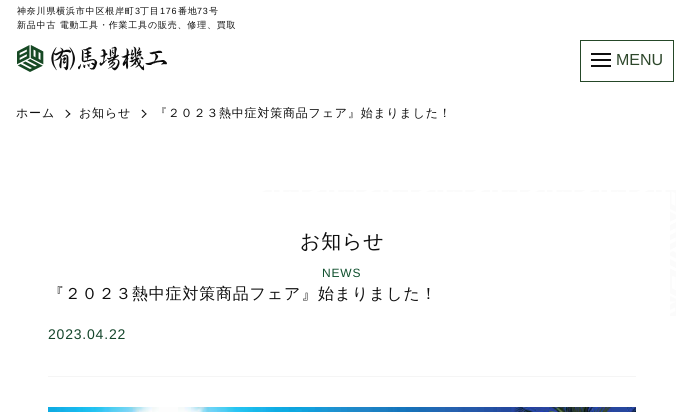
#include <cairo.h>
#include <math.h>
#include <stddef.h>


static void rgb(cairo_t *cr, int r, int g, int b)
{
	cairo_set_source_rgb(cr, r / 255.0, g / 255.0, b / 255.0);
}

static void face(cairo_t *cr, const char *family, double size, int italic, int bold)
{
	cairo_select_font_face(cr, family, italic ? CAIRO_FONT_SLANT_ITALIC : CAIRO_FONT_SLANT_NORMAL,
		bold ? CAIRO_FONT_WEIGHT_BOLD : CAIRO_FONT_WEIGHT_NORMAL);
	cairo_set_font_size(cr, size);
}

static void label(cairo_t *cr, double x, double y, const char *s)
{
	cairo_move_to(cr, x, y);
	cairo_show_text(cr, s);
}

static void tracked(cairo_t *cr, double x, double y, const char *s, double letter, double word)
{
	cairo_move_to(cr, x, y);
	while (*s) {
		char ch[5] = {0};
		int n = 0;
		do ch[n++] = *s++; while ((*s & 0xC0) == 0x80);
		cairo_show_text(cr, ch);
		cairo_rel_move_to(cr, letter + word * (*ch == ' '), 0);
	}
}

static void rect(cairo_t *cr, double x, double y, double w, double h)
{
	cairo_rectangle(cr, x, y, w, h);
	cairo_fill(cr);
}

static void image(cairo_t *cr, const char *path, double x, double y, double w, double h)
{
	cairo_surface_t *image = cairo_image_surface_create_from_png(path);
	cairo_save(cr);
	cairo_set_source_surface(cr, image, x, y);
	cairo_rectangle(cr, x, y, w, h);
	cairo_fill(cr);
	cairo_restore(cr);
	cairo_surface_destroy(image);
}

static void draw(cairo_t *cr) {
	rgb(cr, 255, 255, 255);
	cairo_paint(cr);
	face(cr, "WenQuanYi Zen Hei Medium", 9, 0, 0);
	rgb(cr, 15, 15, 15);
	tracked(cr, 17, 14, "神奈川県横浜市中区根岸町", 0.8, 0);
	face(cr, "Liberation Sans", 9, 0, 0);
	tracked(cr, 135, 14, "3", 0.8, 0);
	face(cr, "WenQuanYi Zen Hei Medium", 9, 0, 0);
	tracked(cr, 140, 14, "丁目", 0.8, 0);
	face(cr, "Liberation Sans", 9, 0, 0);
	tracked(cr, 160, 14, "176", 0.8, 0);
	face(cr, "WenQuanYi Zen Hei Medium", 9, 0, 0);
	tracked(cr, 178, 14, "番地", 0.8, 0);
	face(cr, "Liberation Sans", 9, 0, 0);
	tracked(cr, 197, 14, "73", 0.8, 0);
	face(cr, "WenQuanYi Zen Hei Medium", 9, 0, 0);
	tracked(cr, 209, 14, "号", 0.8, 0);
	tracked(cr, 17, 28, "新品中古 電動工具・作業工具の販売、修理、買取", 0.8, 0);
	image(cr, "image0.png", 17, 45, 150, 27);
	cairo_rectangle(cr, 580.5, 40.5, 93, 41);
	rgb(cr, 37, 72, 40);
	cairo_set_line_width(cr, 1);
	cairo_stroke(cr);
	rgb(cr, 15, 15, 15);
	rect(cr, 591, 53, 20, 2);
	rect(cr, 591, 59, 20, 2);
	rect(cr, 591, 65, 20, 2);
	face(cr, "Liberation Sans", 16, 0, 0);
	rgb(cr, 45, 71, 43);
	label(cr, 616, 65, "MENU");
	face(cr, "WenQuanYi Zen Hei Medium", 12, 0, 0);
	rgb(cr, 15, 15, 15);
	tracked(cr, 16, 117, "ホーム", 0.8, 0);
	cairo_new_path(cr);
	cairo_move_to(cr, 66, 109.5);
	cairo_line_to(cr, 70.5, 114);
	cairo_line_to(cr, 69.5, 114.5);
	cairo_line_to(cr, 65.5, 110.5);
	cairo_close_path(cr);
	cairo_fill(cr);
	cairo_new_path(cr);
	cairo_move_to(cr, 69.5, 113);
	cairo_line_to(cr, 70.5, 114);
	cairo_line_to(cr, 66, 118);
	cairo_line_to(cr, 65.5, 117.5);
	cairo_close_path(cr);
	cairo_fill(cr);
	tracked(cr, 79, 117, "お知らせ", 0.8, 0);
	cairo_new_path(cr);
	cairo_move_to(cr, 142.5, 109.5);
	cairo_line_to(cr, 146.5, 114);
	cairo_line_to(cr, 146, 114.5);
	cairo_line_to(cr, 141.5, 110.5);
	cairo_close_path(cr);
	cairo_fill(cr);
	cairo_new_path(cr);
	cairo_move_to(cr, 146, 113);
	cairo_line_to(cr, 146.5, 114);
	cairo_line_to(cr, 142.5, 118);
	cairo_line_to(cr, 141.5, 117.5);
	cairo_close_path(cr);
	cairo_fill(cr);
	tracked(cr, 155, 117, "『２０２３熱中症対策商品フェア』始まりました！", 0.8, 0);
	image(cr, "image1.png", 262, 190, 414, 126);
	rgb(cr, 255, 255, 255);
	rect(cr, 262, 192, 408, 124);
	face(cr, "WenQuanYi Zen Hei Medium", 20, 0, 0);
	rgb(cr, 15, 15, 15);
	tracked(cr, 300, 248, "お知らせ", 0.8, 0);
	face(cr, "Liberation Sans", 12, 0, 0);
	rgb(cr, 15, 79, 45);
	tracked(cr, 322, 277, "NEWS", 0.8, 0);
	rgb(cr, 245, 245, 245);
	rect(cr, 48, 376, 588, 1);
	face(cr, "WenQuanYi Zen Hei Medium", 16, 0, 0);
	rgb(cr, 15, 15, 15);
	tracked(cr, 48, 299, "『２０２３熱中症対策商品フェア』始まりました！", 0.8, 0);
	face(cr, "Liberation Sans", 14, 0, 0);
	rgb(cr, 19, 69, 42);
	tracked(cr, 48, 339, "2023.04.22", 0.8, 0);
	image(cr, "image2.png", 48, 407, 588, 5);
}

int main(void) {
	cairo_surface_t *surface = cairo_image_surface_create(CAIRO_FORMAT_RGB24, 684, 412);
	cairo_t *cr = cairo_create(surface);
	cairo_font_options_t *options = cairo_font_options_create();
	cairo_font_options_set_hint_metrics(options, CAIRO_HINT_METRICS_OFF);
	cairo_font_options_set_hint_style(options, CAIRO_HINT_STYLE_NONE);
	cairo_set_font_options(cr, options);
	cairo_set_miter_limit(cr, 4);
	draw(cr);
	cairo_surface_write_to_png(surface, "render.png");
	cairo_font_options_destroy(options);
	cairo_destroy(cr);
	cairo_surface_destroy(surface);
	return 0;
}
